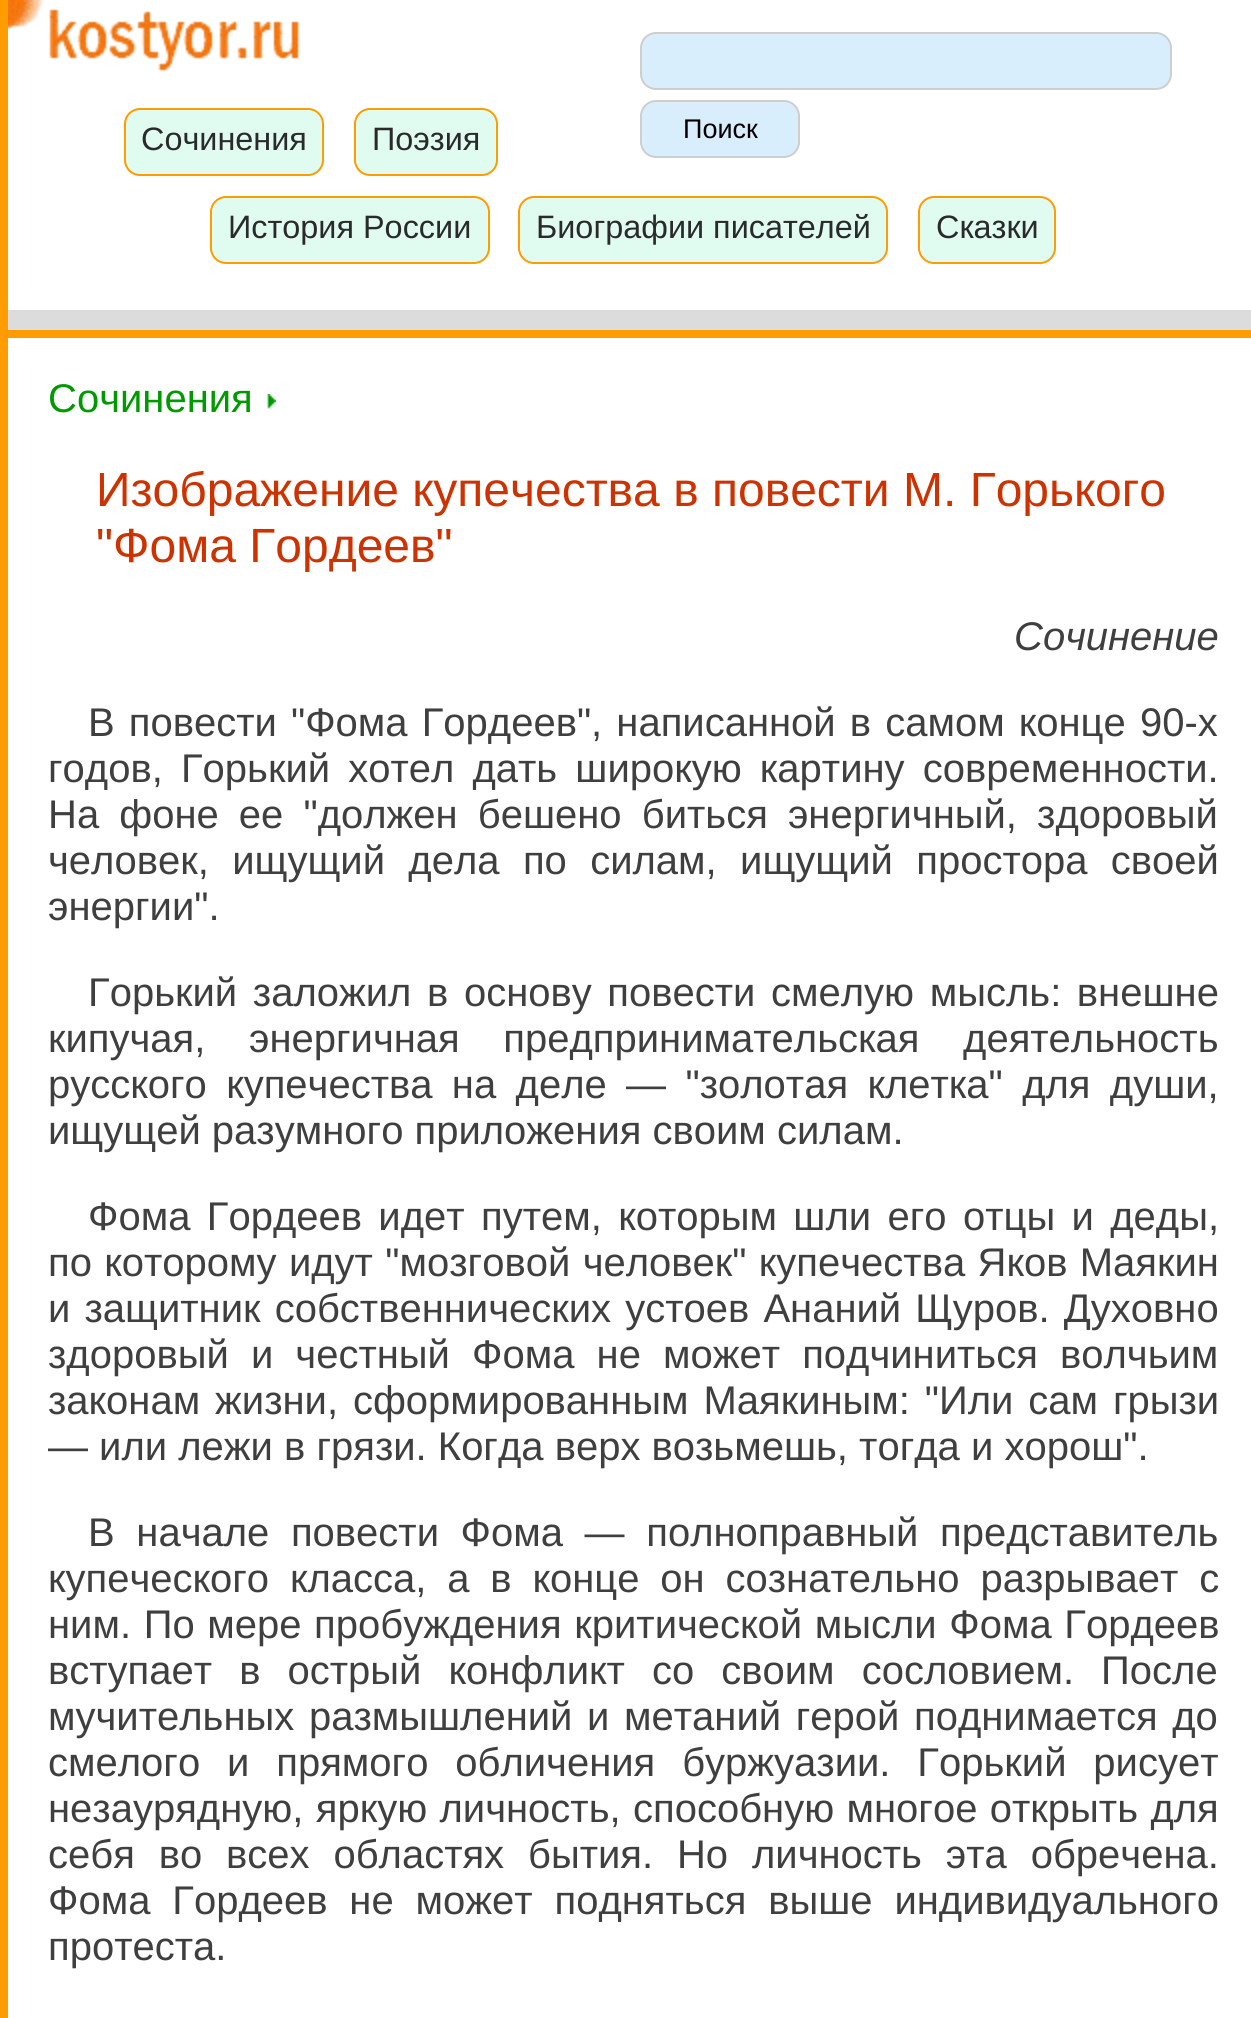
#include <cairo.h>
#include <math.h>
#include <stddef.h>


static void rgb(cairo_t *cr, int r, int g, int b)
{
	cairo_set_source_rgb(cr, r / 255.0, g / 255.0, b / 255.0);
}

static void face(cairo_t *cr, const char *family, double size, int italic, int bold)
{
	cairo_select_font_face(cr, family, italic ? CAIRO_FONT_SLANT_ITALIC : CAIRO_FONT_SLANT_NORMAL,
		bold ? CAIRO_FONT_WEIGHT_BOLD : CAIRO_FONT_WEIGHT_NORMAL);
	cairo_set_font_size(cr, size);
}

static void label(cairo_t *cr, double x, double y, const char *s)
{
	cairo_move_to(cr, x, y);
	cairo_show_text(cr, s);
}

static void tracked(cairo_t *cr, double x, double y, const char *s, double letter, double word)
{
	cairo_move_to(cr, x, y);
	while (*s) {
		char ch[5] = {0};
		int n = 0;
		do ch[n++] = *s++; while ((*s & 0xC0) == 0x80);
		cairo_show_text(cr, ch);
		cairo_rel_move_to(cr, letter + word * (*ch == ' '), 0);
	}
}

static void rect(cairo_t *cr, double x, double y, double w, double h)
{
	cairo_rectangle(cr, x, y, w, h);
	cairo_fill(cr);
}

static void rrect(cairo_t *cr, double x, double y, double w, double h, double r)
{
	cairo_new_sub_path(cr);
	cairo_arc(cr, x + w - r, y + h - r, r, 0, M_PI / 2);
	cairo_arc(cr, x + r, y + h - r, r, M_PI / 2, M_PI);
	cairo_arc(cr, x + r, y + r, r, M_PI, 1.5 * M_PI);
	cairo_arc(cr, x + w - r, y + r, r, 1.5 * M_PI, 2 * M_PI);
	cairo_close_path(cr);
}

static void image(cairo_t *cr, const char *path, double x, double y, double w, double h)
{
	cairo_surface_t *image = cairo_image_surface_create_from_png(path);
	cairo_save(cr);
	cairo_set_source_surface(cr, image, x, y);
	cairo_rectangle(cr, x, y, w, h);
	cairo_fill(cr);
	cairo_restore(cr);
	cairo_surface_destroy(image);
}

static void draw(cairo_t *cr) {
	rgb(cr, 255, 156, 1);
	cairo_paint(cr);
	rgb(cr, 255, 255, 255);
	rect(cr, 8, 0, 1243, 2018);
	image(cr, "image0.png", 8, 0, 292, 71);
	rgb(cr, 217, 238, 253);
	rrect(cr, 641, 33, 530, 56, 15);
	cairo_fill_preserve(cr);
	rgb(cr, 206, 206, 206);
	cairo_stroke(cr);
	rgb(cr, 217, 238, 253);
	rrect(cr, 641, 101, 158, 56, 15);
	cairo_fill_preserve(cr);
	rgb(cr, 206, 206, 206);
	cairo_stroke(cr);
	face(cr, "Liberation Sans", 27, 0, 0);
	rgb(cr, 0, 0, 0);
	label(cr, 683, 138, "Поиск");
	rgb(cr, 224, 252, 240);
	rrect(cr, 125, 109, 198, 66, 15);
	cairo_fill_preserve(cr);
	rgb(cr, 255, 156, 1);
	cairo_stroke(cr);
	face(cr, "Liberation Sans", 32.4, 0, 0);
	rgb(cr, 42, 42, 42);
	label(cr, 141, 150, "Сочинения");
	rgb(cr, 224, 252, 240);
	rrect(cr, 355, 109, 142, 66, 15);
	cairo_fill_preserve(cr);
	rgb(cr, 255, 156, 1);
	cairo_stroke(cr);
	rgb(cr, 42, 42, 42);
	label(cr, 372, 150, "Поэзия");
	rgb(cr, 224, 252, 240);
	rrect(cr, 211, 197, 278, 66, 15);
	cairo_fill_preserve(cr);
	rgb(cr, 255, 156, 1);
	cairo_stroke(cr);
	rgb(cr, 42, 42, 42);
	label(cr, 228, 238, "История России");
	rgb(cr, 224, 252, 240);
	rrect(cr, 519, 197, 368, 66, 15);
	cairo_fill_preserve(cr);
	rgb(cr, 255, 156, 1);
	cairo_stroke(cr);
	rgb(cr, 42, 42, 42);
	label(cr, 536, 238, "Биографии писателей");
	rgb(cr, 224, 252, 240);
	rrect(cr, 919, 197, 136, 66, 15);
	cairo_fill_preserve(cr);
	rgb(cr, 255, 156, 1);
	cairo_stroke(cr);
	rgb(cr, 42, 42, 42);
	label(cr, 936, 238, "Сказки");
	rgb(cr, 220, 220, 220);
	rect(cr, 8, 310, 1243, 20);
	rgb(cr, 255, 156, 1);
	rect(cr, 8, 330, 1243, 8);
	face(cr, "Liberation Sans", 40, 0, 0);
	rgb(cr, 0, 153, 0);
	label(cr, 48, 412, "Сочинения");
	image(cr, "image1.png", 267, 394, 9, 15);
	face(cr, "Liberation Sans", 48, 0, 0);
	rgb(cr, 204, 51, 0);
	label(cr, 96, 506, "Изображение купечества в повести М. Горького");
	label(cr, 96, 562, "\"Фома Гордеев\"");
	face(cr, "Liberation Sans", 40, 1, 0);
	rgb(cr, 63, 63, 63);
	label(cr, 1014, 650, "Сочинение");
	face(cr, "Liberation Sans", 40, 0, 0);
	tracked(cr, 88, 736, "В повести \"Фома Гордеев\", написанной в самом конце 90-х", 0, 3);
	tracked(cr, 48, 782, "годов, Горький хотел дать широкую картину современности.", 0, 7);
	tracked(cr, 48, 828, "На фоне ее \"должен бешено биться энергичный, здоровый", 0, 9);
	tracked(cr, 48, 874, "человек, ищущий дела по силам, ищущий простора своей", 0, 12.25);
	label(cr, 48, 920, "энергии\".");
	tracked(cr, 88, 1006, "Горький заложил в основу повести смелую мысль: внешне", 0, 4.5);
	tracked(cr, 48, 1052, "кипучая, энергичная предпринимательская деятельность", 0, 32.5);
	tracked(cr, 48, 1098, "русского купечества на деле — \"золотая клетка\" для души,", 0, 8.25);
	label(cr, 48, 1144, "ищущей разумного приложения своим силам.");
	tracked(cr, 88, 1230, "Фома Гордеев идет путем, которым шли его отцы и деды,", 0, 5.25);
	tracked(cr, 48, 1276, "по которому идут \"мозговой человек\" купечества Яков Маякин", 0, 1.25);
	tracked(cr, 48, 1322, "и защитник собственнических устоев Ананий Щуров. Духовно", 0, 3);
	tracked(cr, 48, 1368, "здоровый и честный Фома не может подчиниться волчьим", 0, 11);
	tracked(cr, 48, 1414, "законам жизни, сформированным Маякиным: \"Или сам грызи", 0, 3.75);
	label(cr, 48, 1460, "— или лежи в грязи. Когда верх возьмешь, тогда и хорош\".");
	tracked(cr, 88, 1546, "В начале повести Фома — полноправный представитель", 0, 10.5);
	tracked(cr, 48, 1592, "купеческого класса, а в конце он сознательно разрывает с", 0, 9.75);
	tracked(cr, 48, 1638, "ним. По мере пробуждения критической мысли Фома Гордеев", 0, 1.5);
	tracked(cr, 48, 1684, "вступает в острый конфликт со своим сословием. После", 0, 16);
	tracked(cr, 48, 1730, "мучительных размышлений и метаний герой поднимается до", 0, 3.5);
	tracked(cr, 48, 1776, "смелого и прямого обличения буржуазии. Горький рисует", 0, 15.75);
	tracked(cr, 48, 1822, "незаурядную, яркую личность, способную многое открыть для", 0, 1.25);
	tracked(cr, 48, 1868, "себя во всех областях бытия. Но личность эта обречена.", 0, 12.75);
	tracked(cr, 48, 1914, "Фома Гордеев не может подняться выше индивидуального", 0, 10.75);
	label(cr, 48, 1960, "протеста.");
}

int main(void) {
	cairo_surface_t *surface = cairo_image_surface_create(CAIRO_FORMAT_RGB24, 1251, 2018);
	cairo_t *cr = cairo_create(surface);
	cairo_font_options_t *options = cairo_font_options_create();
	cairo_font_options_set_hint_metrics(options, CAIRO_HINT_METRICS_OFF);
	cairo_font_options_set_hint_style(options, CAIRO_HINT_STYLE_NONE);
	cairo_set_font_options(cr, options);
	cairo_set_miter_limit(cr, 4);
	draw(cr);
	cairo_surface_write_to_png(surface, "render.png");
	cairo_font_options_destroy(options);
	cairo_destroy(cr);
	cairo_surface_destroy(surface);
	return 0;
}
